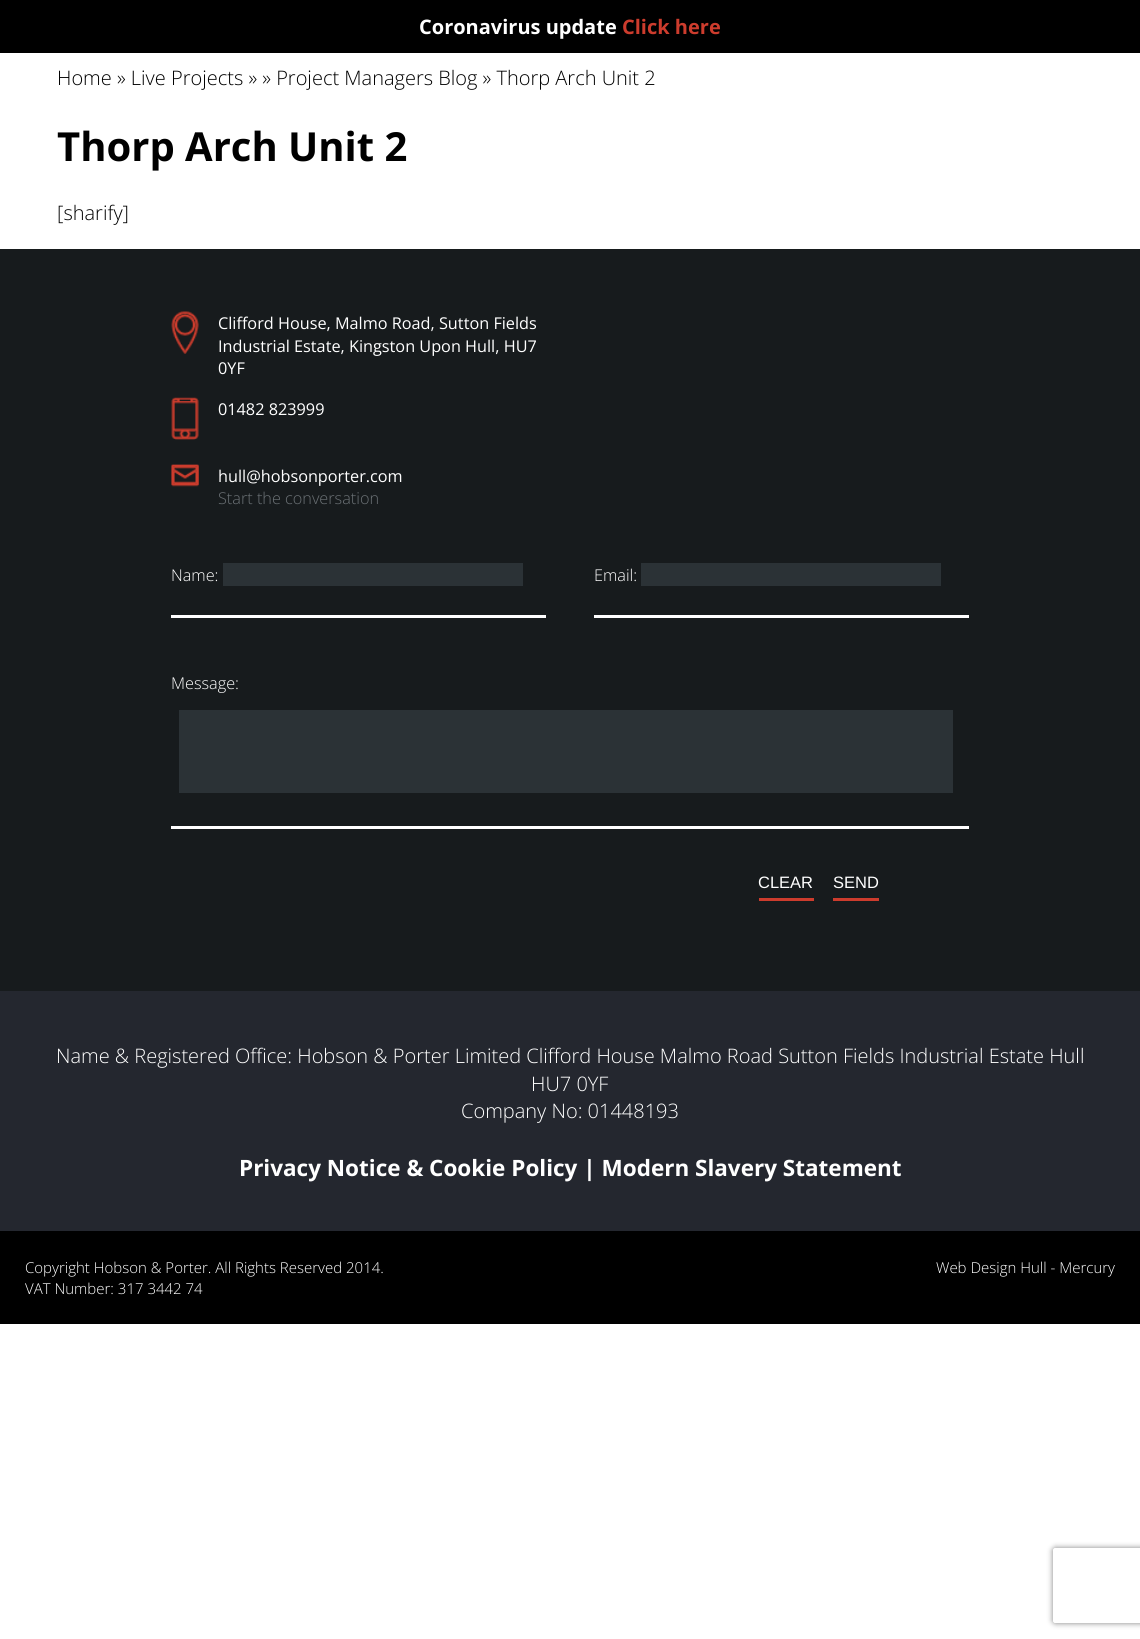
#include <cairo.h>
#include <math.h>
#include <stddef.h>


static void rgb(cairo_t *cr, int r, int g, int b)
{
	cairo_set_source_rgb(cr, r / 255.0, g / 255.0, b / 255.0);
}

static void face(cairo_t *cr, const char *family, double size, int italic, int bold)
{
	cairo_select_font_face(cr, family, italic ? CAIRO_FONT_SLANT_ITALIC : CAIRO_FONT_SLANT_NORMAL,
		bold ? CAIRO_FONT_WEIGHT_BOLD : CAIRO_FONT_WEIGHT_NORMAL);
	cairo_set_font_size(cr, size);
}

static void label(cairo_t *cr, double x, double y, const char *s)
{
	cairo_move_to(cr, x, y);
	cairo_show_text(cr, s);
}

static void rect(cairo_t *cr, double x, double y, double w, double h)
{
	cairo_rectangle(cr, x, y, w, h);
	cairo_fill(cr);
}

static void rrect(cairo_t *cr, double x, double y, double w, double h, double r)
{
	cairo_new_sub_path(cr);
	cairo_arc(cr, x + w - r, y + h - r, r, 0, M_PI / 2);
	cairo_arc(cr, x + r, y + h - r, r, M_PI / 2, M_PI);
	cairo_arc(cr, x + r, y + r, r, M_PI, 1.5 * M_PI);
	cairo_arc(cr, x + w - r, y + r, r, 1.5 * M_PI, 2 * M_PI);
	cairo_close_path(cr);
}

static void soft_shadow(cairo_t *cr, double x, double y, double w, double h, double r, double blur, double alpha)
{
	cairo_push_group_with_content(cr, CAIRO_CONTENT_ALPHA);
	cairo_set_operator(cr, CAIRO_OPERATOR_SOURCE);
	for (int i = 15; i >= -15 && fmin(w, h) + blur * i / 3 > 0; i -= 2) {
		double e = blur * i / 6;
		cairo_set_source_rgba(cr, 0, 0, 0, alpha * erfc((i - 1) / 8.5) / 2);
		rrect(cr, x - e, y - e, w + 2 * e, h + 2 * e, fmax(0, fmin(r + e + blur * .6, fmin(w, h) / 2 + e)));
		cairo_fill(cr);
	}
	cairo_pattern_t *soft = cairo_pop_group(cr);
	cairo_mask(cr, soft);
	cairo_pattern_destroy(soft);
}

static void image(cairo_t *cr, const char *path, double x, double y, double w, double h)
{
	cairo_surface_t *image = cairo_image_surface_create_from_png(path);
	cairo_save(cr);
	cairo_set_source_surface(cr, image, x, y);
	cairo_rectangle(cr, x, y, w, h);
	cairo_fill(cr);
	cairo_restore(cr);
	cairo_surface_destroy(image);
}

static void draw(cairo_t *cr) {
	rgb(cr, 255, 255, 255);
	cairo_paint(cr);
	rgb(cr, 0, 0, 0);
	rect(cr, 0, 0, 1140, 53);
	face(cr, "Open Sans", 20, 0, 1);
	rgb(cr, 255, 255, 255);
	label(cr, 419, 34, "Coronavirus update");
	rgb(cr, 205, 60, 45);
	label(cr, 622, 34, "Click here");
	face(cr, "Open Sans Light", 20, 0, 0);
	rgb(cr, 0, 0, 0);
	label(cr, 57, 85, "Home » Live Projects » » Project Managers Blog » Thorp Arch Unit 2");
	face(cr, "Open Sans", 40, 0, 1);
	label(cr, 57, 161, "Thorp Arch Unit 2");
	face(cr, "Open Sans Light", 20, 0, 0);
	label(cr, 57, 220, "[sharify]");
	rgb(cr, 23, 27, 29);
	rect(cr, 0, 249, 1140, 742);
	image(cr, "image0.png", 171, 311, 28, 43);
	face(cr, "Open Sans", 16.25, 0, 0);
	rgb(cr, 255, 255, 255);
	label(cr, 218, 329, "Clifford House, Malmo Road, Sutton Fields");
	label(cr, 218, 352, "Industrial Estate, Kingston Upon Hull, HU7");
	label(cr, 218, 374, "0YF");
	image(cr, "image1.png", 171, 397, 28, 43);
	label(cr, 218, 415, "01482 823999");
	image(cr, "image2.png", 171, 464, 28, 23);
	label(cr, 218, 482, "hull@hobsonporter.com");
	face(cr, "Open Sans Light", 16.25, 0, 0);
	rgb(cr, 107, 113, 117);
	label(cr, 218, 504, "Start the conversation");
	rgb(cr, 255, 255, 255);
	rect(cr, 171, 615, 375, 3);
	label(cr, 171, 581, "Name:");
	rgb(cr, 43, 50, 54);
	rect(cr, 223, 563, 300, 23);
	rgb(cr, 255, 255, 255);
	rect(cr, 594, 615, 375, 3);
	label(cr, 594, 581, "Email:");
	rgb(cr, 43, 50, 54);
	rect(cr, 641, 563, 300, 23);
	rgb(cr, 255, 255, 255);
	rect(cr, 171, 826, 798, 3);
	label(cr, 171, 689, "Message:");
	rgb(cr, 43, 50, 54);
	rect(cr, 179, 710, 774, 83);
	rgb(cr, 205, 60, 45);
	rect(cr, 759, 898, 55, 3);
	face(cr, "Liberation Sans", 16.5, 0, 0);
	rgb(cr, 255, 255, 255);
	label(cr, 758, 888, "CLEAR");
	rgb(cr, 205, 60, 45);
	rect(cr, 833, 898, 46, 3);
	rgb(cr, 255, 255, 255);
	label(cr, 833, 888, "SEND");
	rgb(cr, 36, 39, 47);
	rect(cr, 0, 991, 1140, 240);
	face(cr, "Open Sans Light", 20, 0, 0);
	rgb(cr, 255, 255, 255);
	label(cr, 56, 1063, "Name & Registered Office: Hobson & Porter Limited Clifford House Malmo Road Sutton Fields Industrial Estate Hull");
	label(cr, 531, 1091, "HU7 0YF");
	label(cr, 461, 1118, "Company No: 01448193");
	face(cr, "Open Sans", 22.5, 0, 1);
	label(cr, 239, 1176, "Privacy Notice & Cookie Policy | Modern Slavery Statement");
	rgb(cr, 0, 0, 0);
	rect(cr, 0, 1231, 1140, 93);
	face(cr, "Open Sans Light", 15, 0, 0);
	rgb(cr, 255, 255, 255);
	label(cr, 25, 1273, "Copyright Hobson & Porter. All Rights Reserved 2014.");
	label(cr, 25, 1294, "VAT Number: 317 3442 74");
	label(cr, 936, 1273, "Web Design Hull - Mercury");
	cairo_save(cr);
	cairo_set_fill_rule(cr, CAIRO_FILL_RULE_EVEN_ODD);
	cairo_new_path(cr);
	cairo_move_to(cr, 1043, 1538);
	cairo_line_to(cr, 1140, 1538);
	cairo_line_to(cr, 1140, 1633);
	cairo_line_to(cr, 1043, 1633);
	cairo_close_path(cr);
	cairo_move_to(cr, 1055.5, 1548);
	cairo_line_to(cr, 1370.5, 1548);
	cairo_curve_to(cr, 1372, 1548, 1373, 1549, 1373, 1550.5);
	cairo_line_to(cr, 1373, 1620.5);
	cairo_curve_to(cr, 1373, 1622, 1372, 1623, 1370.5, 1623);
	cairo_line_to(cr, 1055.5, 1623);
	cairo_curve_to(cr, 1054, 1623, 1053, 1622, 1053, 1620.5);
	cairo_line_to(cr, 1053, 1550.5);
	cairo_curve_to(cr, 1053, 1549, 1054, 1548, 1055.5, 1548);
	cairo_close_path(cr);
	cairo_clip(cr);
	rgb(cr, 128, 128, 128);
	soft_shadow(cr, 1053, 1548, 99, 75, 2.5, 3, 1);
	cairo_restore(cr);
}

int main(void) {
	cairo_surface_t *surface = cairo_image_surface_create(CAIRO_FORMAT_RGB24, 1140, 1639);
	cairo_t *cr = cairo_create(surface);
	cairo_font_options_t *options = cairo_font_options_create();
	cairo_font_options_set_hint_metrics(options, CAIRO_HINT_METRICS_OFF);
	cairo_font_options_set_hint_style(options, CAIRO_HINT_STYLE_NONE);
	cairo_set_font_options(cr, options);
	cairo_set_miter_limit(cr, 4);
	draw(cr);
	cairo_surface_write_to_png(surface, "render.png");
	cairo_font_options_destroy(options);
	cairo_destroy(cr);
	cairo_surface_destroy(surface);
	return 0;
}
